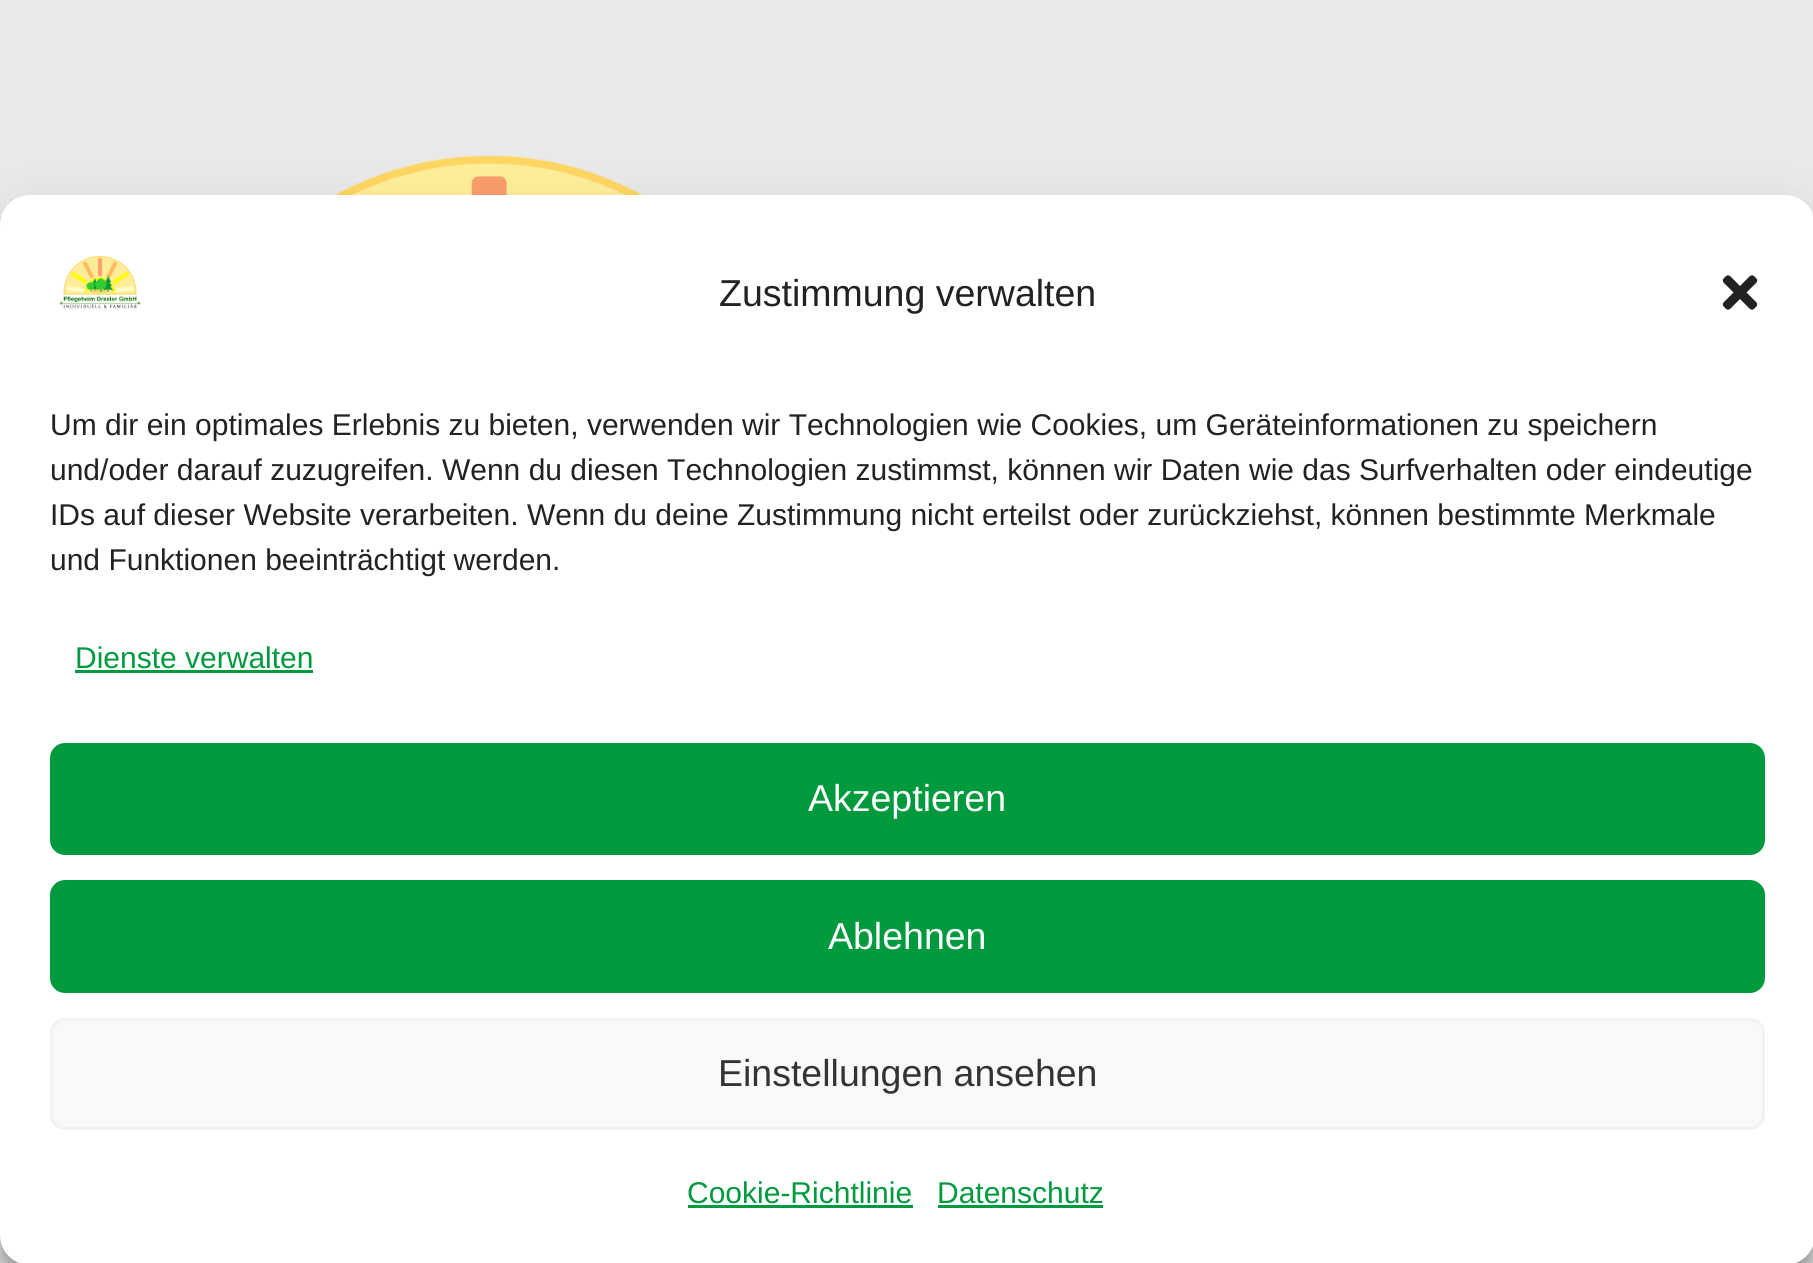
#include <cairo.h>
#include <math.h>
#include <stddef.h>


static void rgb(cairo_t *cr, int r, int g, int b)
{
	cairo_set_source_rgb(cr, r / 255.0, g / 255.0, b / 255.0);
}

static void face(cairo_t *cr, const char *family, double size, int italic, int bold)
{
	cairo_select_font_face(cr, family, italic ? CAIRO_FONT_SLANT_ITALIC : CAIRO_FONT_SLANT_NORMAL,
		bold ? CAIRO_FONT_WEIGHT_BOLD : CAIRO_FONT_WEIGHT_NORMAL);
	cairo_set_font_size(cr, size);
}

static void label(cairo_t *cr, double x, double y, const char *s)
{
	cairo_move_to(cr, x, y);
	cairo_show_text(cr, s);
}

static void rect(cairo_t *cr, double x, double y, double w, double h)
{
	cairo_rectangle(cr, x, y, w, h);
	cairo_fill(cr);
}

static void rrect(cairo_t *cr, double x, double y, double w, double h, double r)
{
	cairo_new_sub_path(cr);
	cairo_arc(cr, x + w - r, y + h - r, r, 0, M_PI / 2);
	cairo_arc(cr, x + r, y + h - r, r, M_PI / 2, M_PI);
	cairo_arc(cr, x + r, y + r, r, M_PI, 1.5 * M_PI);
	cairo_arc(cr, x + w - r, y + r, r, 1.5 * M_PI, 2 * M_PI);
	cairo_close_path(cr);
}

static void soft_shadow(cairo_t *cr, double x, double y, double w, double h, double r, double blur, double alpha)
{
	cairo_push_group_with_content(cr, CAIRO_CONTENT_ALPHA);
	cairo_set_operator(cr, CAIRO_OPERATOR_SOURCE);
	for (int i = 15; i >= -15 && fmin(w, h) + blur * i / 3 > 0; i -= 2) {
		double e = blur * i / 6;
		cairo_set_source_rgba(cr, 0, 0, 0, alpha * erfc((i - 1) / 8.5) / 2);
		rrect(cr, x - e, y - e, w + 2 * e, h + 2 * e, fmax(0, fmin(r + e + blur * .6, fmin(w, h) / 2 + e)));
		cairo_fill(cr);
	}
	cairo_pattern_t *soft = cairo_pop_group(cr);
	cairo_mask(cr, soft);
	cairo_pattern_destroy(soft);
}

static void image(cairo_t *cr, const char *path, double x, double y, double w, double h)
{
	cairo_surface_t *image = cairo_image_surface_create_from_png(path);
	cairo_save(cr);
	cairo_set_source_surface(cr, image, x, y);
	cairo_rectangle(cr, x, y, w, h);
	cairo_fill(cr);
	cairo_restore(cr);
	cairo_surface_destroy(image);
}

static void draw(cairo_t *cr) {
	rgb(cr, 233, 233, 233);
	cairo_paint(cr);
	image(cr, "image0.png", 334, 155, 309, 40);
	rgb(cr, 0, 0, 0);
	soft_shadow(cr, 0, 210, 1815, 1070, 30, 7.5, 0.23);
	soft_shadow(cr, 0, 220, 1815, 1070, 30, 25, 0.19);
	rgb(cr, 255, 255, 255);
	rrect(cr, 0, 195, 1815, 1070, 30);
	cairo_fill(cr);
	image(cr, "image1.png", 59, 256, 82, 53);
	face(cr, "Liberation Sans", 37.5, 0, 0);
	rgb(cr, 34, 34, 34);
	label(cr, 719, 306, "Zustimmung verwalten");
	image(cr, "image2.png", 1722, 275, 36, 35);
	face(cr, "Liberation Sans", 30, 0, 0);
	label(cr, 50, 435, "Um dir ein optimales Erlebnis zu bieten, verwenden wir Technologien wie Cookies, um Geräteinformationen zu speichern");
	label(cr, 50, 480, "und/oder darauf zuzugreifen. Wenn du diesen Technologien zustimmst, können wir Daten wie das Surfverhalten oder eindeutige");
	label(cr, 50, 525, "IDs auf dieser Website verarbeiten. Wenn du deine Zustimmung nicht erteilst oder zurückziehst, können bestimmte Merkmale");
	label(cr, 50, 570, "und Funktionen beeinträchtigt werden.");
	rgb(cr, 0, 154, 62);
	label(cr, 75, 668, "Dienste verwalten");
	rect(cr, 75, 670, 238, 3);
	rrect(cr, 51.5, 744.5, 1712, 109, 13.5);
	cairo_fill_preserve(cr);
	cairo_set_line_width(cr, 3);
	cairo_stroke(cr);
	face(cr, "Liberation Sans", 37.5, 0, 0);
	rgb(cr, 255, 255, 255);
	label(cr, 808, 811, "Akzeptieren");
	rgb(cr, 0, 154, 62);
	rrect(cr, 51.5, 881.5, 1712, 110, 13.5);
	cairo_fill_preserve(cr);
	cairo_stroke(cr);
	rgb(cr, 255, 255, 255);
	label(cr, 828, 949, "Ablehnen");
	rgb(cr, 249, 249, 249);
	rrect(cr, 51.5, 1019.5, 1712, 109, 13.5);
	cairo_fill_preserve(cr);
	rgb(cr, 242, 242, 242);
	cairo_stroke(cr);
	rgb(cr, 51, 51, 51);
	label(cr, 718, 1086, "Einstellungen ansehen");
	face(cr, "Liberation Sans", 30, 0, 0);
	rgb(cr, 0, 154, 62);
	label(cr, 687, 1203, "Cookie-Richtlinie");
	rect(cr, 688, 1205, 225, 3);
	label(cr, 937, 1203, "Datenschutz");
	rect(cr, 938, 1205, 165, 3);
}

int main(void) {
	cairo_surface_t *surface = cairo_image_surface_create(CAIRO_FORMAT_RGB24, 1813, 1263);
	cairo_t *cr = cairo_create(surface);
	cairo_font_options_t *options = cairo_font_options_create();
	cairo_font_options_set_hint_metrics(options, CAIRO_HINT_METRICS_OFF);
	cairo_font_options_set_hint_style(options, CAIRO_HINT_STYLE_NONE);
	cairo_set_font_options(cr, options);
	cairo_set_miter_limit(cr, 4);
	draw(cr);
	cairo_surface_write_to_png(surface, "render.png");
	cairo_font_options_destroy(options);
	cairo_destroy(cr);
	cairo_surface_destroy(surface);
	return 0;
}
